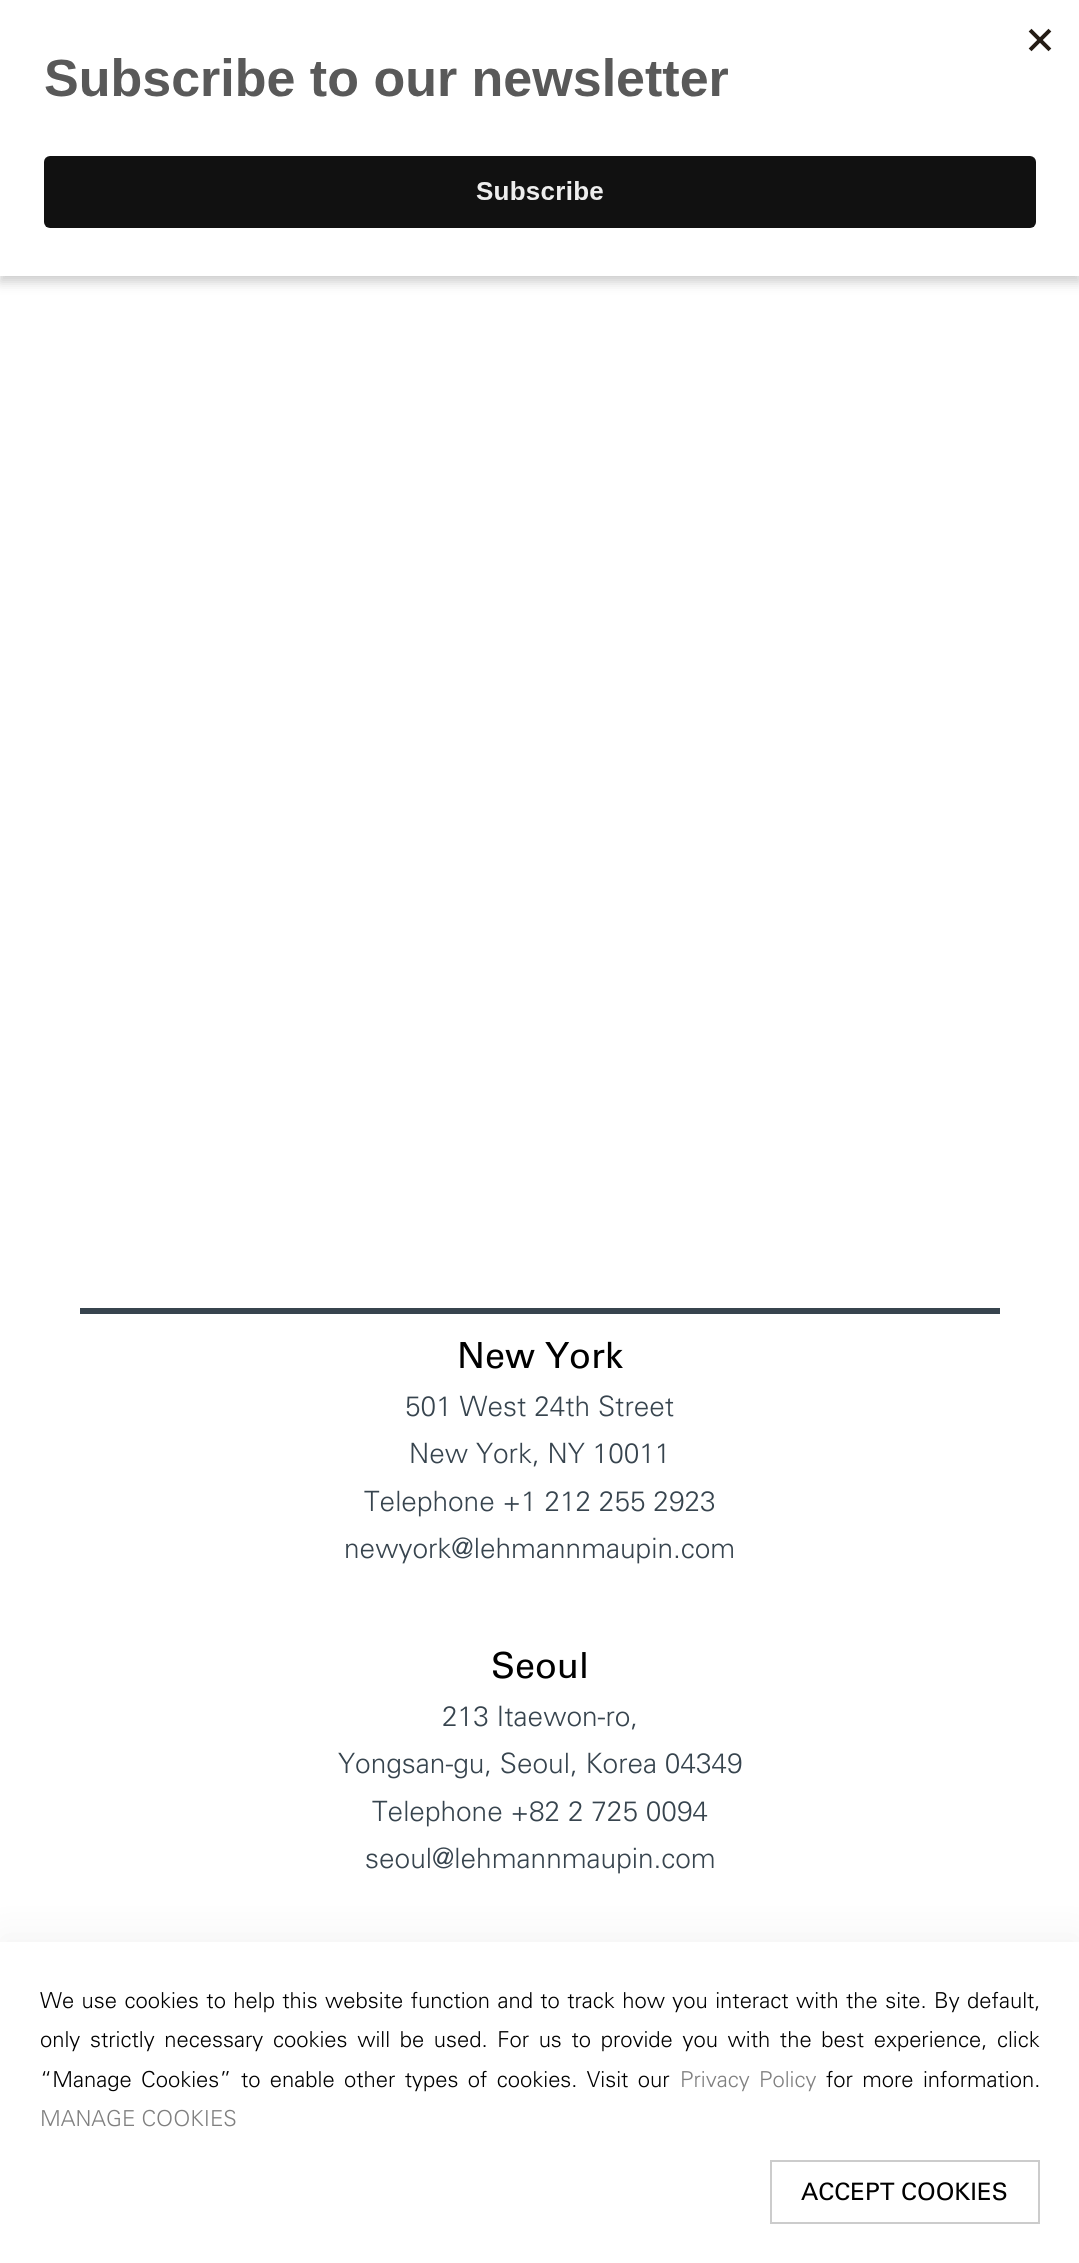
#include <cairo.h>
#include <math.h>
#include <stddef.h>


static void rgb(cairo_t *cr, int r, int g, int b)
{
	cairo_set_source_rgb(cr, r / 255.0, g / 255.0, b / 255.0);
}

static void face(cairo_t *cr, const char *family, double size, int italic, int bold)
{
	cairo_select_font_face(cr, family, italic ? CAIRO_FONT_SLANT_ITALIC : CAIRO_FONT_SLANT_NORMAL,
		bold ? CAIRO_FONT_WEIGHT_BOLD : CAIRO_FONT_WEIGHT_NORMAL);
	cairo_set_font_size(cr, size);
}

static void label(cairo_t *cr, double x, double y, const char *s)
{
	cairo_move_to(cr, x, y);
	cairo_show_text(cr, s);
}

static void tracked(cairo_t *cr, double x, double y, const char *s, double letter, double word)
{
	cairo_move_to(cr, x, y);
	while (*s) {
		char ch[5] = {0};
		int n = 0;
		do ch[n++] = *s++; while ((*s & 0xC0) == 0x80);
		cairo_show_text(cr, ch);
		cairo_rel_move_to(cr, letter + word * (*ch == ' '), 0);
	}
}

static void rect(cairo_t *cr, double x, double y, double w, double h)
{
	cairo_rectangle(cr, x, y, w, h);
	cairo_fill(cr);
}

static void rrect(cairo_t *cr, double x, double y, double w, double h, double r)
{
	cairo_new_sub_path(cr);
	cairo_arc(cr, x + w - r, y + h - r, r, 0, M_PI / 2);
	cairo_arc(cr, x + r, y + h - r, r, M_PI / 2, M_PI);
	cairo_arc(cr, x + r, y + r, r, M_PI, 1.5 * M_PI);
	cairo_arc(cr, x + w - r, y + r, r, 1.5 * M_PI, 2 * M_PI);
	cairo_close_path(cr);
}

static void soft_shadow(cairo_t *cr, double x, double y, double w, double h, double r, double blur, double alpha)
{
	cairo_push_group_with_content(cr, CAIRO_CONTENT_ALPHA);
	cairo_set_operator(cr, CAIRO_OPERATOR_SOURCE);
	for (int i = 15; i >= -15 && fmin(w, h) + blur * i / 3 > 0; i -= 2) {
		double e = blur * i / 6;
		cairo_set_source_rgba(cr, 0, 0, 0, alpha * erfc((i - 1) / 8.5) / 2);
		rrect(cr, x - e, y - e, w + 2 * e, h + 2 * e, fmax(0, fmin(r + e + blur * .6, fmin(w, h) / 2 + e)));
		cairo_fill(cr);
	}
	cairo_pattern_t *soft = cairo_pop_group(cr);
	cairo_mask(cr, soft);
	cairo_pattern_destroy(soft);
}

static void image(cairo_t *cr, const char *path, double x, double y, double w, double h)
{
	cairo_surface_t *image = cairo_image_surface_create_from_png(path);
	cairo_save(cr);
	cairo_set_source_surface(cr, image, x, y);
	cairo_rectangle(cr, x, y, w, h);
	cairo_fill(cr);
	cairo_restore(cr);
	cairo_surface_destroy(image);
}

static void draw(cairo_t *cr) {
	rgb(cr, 255, 255, 255);
	cairo_paint(cr);
	rgb(cr, 0, 0, 0);
	soft_shadow(cr, 0, 6, 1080, 276, 0, 6, 0.2);
	rgb(cr, 255, 255, 255);
	rect(cr, 0, 0, 1079, 276);
	image(cr, "image0.png", 44, 28, 1008, 200);
	rgb(cr, 55, 68, 78);
	rect(cr, 80, 1308, 920, 6);
	face(cr, "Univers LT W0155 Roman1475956", 36, 0, 0);
	rgb(cr, 0, 0, 0);
	label(cr, 457, 1368, "New York");
	face(cr, "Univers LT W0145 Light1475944 Light", 28, 0, 0);
	rgb(cr, 55, 68, 78);
	label(cr, 405, 1416, "501 West 24th Street");
	label(cr, 409, 1463, "New York, NY 10011");
	label(cr, 364, 1511, "Telephone +1 212 255 2923");
	label(cr, 344, 1558, "newyork@lehmannmaupin.com");
	face(cr, "Univers LT W0155 Roman1475956", 36, 0, 0);
	rgb(cr, 0, 0, 0);
	label(cr, 491, 1678, "Seoul");
	face(cr, "Univers LT W0145 Light1475944 Light", 28, 0, 0);
	rgb(cr, 55, 68, 78);
	label(cr, 442, 1726, "213 Itaewon-ro,");
	label(cr, 338, 1773, "Yongsan-gu, Seoul, Korea 04349");
	label(cr, 372, 1821, "Telephone +82 2 725 0094");
	label(cr, 365, 1868, "seoul@lehmannmaupin.com");
	rgb(cr, 0, 0, 0);
	soft_shadow(cr, 0, 1936, 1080, 322, 0, 20, 0.05);
	rgb(cr, 255, 255, 255);
	rect(cr, 0, 1942, 1079, 321);
	face(cr, "Univers LT W0145 Light1475944 Light", 22, 0, 0);
	rgb(cr, 0, 0, 0);
	tracked(cr, 40, 2008, "We use cookies to help this website function and to track how you interact with the site. By default,", 0, 1.25);
	tracked(cr, 40, 2047, "only strictly necessary cookies will be used. For us to provide you with the best experience, click", 0, 3.5);
	tracked(cr, 40, 2087, "“Manage Cookies” to enable other types of cookies. Visit our", 0, 3.25);
	rgb(cr, 128, 128, 128);
	tracked(cr, 680, 2087, "Privacy Policy", 0, 3.25);
	rgb(cr, 0, 0, 0);
	tracked(cr, 826, 2087, "for more information.", 0, 3.25);
	rgb(cr, 128, 128, 128);
	label(cr, 40, 2126, "MANAGE COOKIES");
	cairo_rectangle(cr, 771, 2161, 268, 62);
	rgb(cr, 204, 204, 204);
	cairo_stroke(cr);
	face(cr, "Univers LT W0155 Roman1475956", 24, 0, 0);
	rgb(cr, 0, 0, 0);
	label(cr, 801, 2200, "ACCEPT COOKIES");
}

int main(void) {
	cairo_surface_t *surface = cairo_image_surface_create(CAIRO_FORMAT_RGB24, 1079, 2263);
	cairo_t *cr = cairo_create(surface);
	cairo_font_options_t *options = cairo_font_options_create();
	cairo_font_options_set_hint_metrics(options, CAIRO_HINT_METRICS_OFF);
	cairo_font_options_set_hint_style(options, CAIRO_HINT_STYLE_NONE);
	cairo_set_font_options(cr, options);
	cairo_set_miter_limit(cr, 4);
	draw(cr);
	cairo_surface_write_to_png(surface, "render.png");
	cairo_font_options_destroy(options);
	cairo_destroy(cr);
	cairo_surface_destroy(surface);
	return 0;
}
